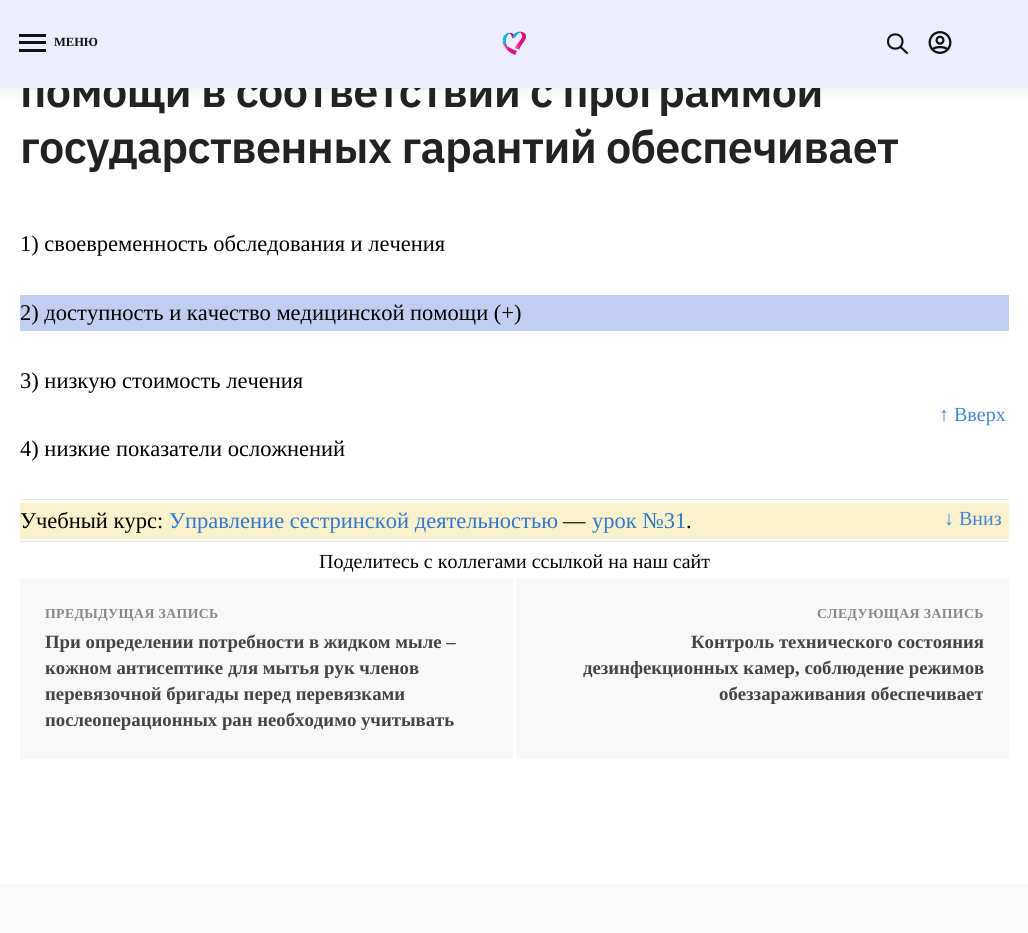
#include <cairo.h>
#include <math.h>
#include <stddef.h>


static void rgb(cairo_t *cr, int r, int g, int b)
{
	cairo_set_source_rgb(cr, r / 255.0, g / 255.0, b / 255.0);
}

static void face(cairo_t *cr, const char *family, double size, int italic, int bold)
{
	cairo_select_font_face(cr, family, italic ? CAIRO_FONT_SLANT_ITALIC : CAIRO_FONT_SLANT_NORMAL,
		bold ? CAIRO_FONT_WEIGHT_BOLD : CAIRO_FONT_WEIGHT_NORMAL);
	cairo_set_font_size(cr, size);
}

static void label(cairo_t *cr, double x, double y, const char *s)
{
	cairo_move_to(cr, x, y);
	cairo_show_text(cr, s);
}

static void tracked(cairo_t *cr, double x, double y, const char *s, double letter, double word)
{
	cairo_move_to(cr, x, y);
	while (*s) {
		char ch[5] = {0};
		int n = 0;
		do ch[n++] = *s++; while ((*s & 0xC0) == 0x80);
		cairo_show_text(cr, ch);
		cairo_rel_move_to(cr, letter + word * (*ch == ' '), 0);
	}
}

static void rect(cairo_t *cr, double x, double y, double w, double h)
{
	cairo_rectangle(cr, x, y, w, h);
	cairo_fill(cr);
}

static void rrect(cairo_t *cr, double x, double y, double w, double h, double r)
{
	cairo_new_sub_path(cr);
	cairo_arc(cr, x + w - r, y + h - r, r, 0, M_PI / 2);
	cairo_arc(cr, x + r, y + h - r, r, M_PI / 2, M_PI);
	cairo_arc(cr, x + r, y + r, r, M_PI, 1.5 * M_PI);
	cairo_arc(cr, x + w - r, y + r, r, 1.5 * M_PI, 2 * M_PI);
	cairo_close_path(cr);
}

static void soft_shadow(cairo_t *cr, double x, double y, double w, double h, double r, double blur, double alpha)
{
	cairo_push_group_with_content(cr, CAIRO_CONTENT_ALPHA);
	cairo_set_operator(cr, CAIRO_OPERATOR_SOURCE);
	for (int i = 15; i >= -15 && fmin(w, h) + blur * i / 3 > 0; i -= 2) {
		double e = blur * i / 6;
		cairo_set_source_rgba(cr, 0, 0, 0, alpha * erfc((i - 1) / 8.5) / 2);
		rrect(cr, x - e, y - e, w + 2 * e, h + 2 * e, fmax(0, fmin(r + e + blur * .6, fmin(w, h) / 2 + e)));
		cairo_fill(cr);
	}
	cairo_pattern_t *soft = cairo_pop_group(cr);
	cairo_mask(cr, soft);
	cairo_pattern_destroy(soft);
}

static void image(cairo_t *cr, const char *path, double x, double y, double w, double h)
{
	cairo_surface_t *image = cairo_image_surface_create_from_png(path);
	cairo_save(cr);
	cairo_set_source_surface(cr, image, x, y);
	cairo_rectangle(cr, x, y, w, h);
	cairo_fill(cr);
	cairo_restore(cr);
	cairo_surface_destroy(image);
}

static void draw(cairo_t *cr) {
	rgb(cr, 255, 255, 255);
	cairo_paint(cr);
	rgb(cr, 0, 0, 0);
	soft_shadow(cr, 0, 1, 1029, 88, 0, 9.5, 0.08);
	face(cr, "IBM Plex Sans SemiBold", 45, 0, 0);
	rgb(cr, 34, 34, 34);
	tracked(cr, 20, 107, "помощи в соответствии с программой", -0.75, 0);
	rgb(cr, 236, 238, 255);
	rect(cr, 0, 0, 1028, 88);
	rgb(cr, 17, 17, 17);
	rect(cr, 19, 34, 27, 3);
	rect(cr, 19, 41, 27, 3);
	face(cr, "Liberation Serif", 12.5, 0, 1);
	label(cr, 54, 46, "МЕНЮ");
	rect(cr, 19, 49, 27, 3);
	image(cr, "image0.png", 502, 31, 25, 24);
	cairo_new_path(cr);
	cairo_move_to(cr, 907, 53);
	cairo_line_to(cr, 900.5, 47);
	cairo_move_to(cr, 902.5, 41.5);
	cairo_curve_to(cr, 902.5, 51, 888, 51, 888, 41.5);
	cairo_curve_to(cr, 888, 32, 902.5, 32, 902.5, 41.5);
	cairo_close_path(cr);
	cairo_set_line_width(cr, 2.1);
	cairo_set_line_cap(cr, CAIRO_LINE_CAP_ROUND);
	cairo_set_line_join(cr, CAIRO_LINE_JOIN_ROUND);
	cairo_stroke(cr);
	image(cr, "image1.png", 928, 31, 24, 23);
	face(cr, "IBM Plex Sans SemiBold", 45, 0, 0);
	rgb(cr, 34, 34, 34);
	tracked(cr, 20, 163, "государственных гарантий обеспечивает", -0.75, 0);
	face(cr, "Liberation Serif", 22.5, 0, 0);
	rgb(cr, 0, 0, 0);
	label(cr, 20, 251, "1) своевременность обследования и лечения");
	rgb(cr, 192, 207, 241);
	rect(cr, 20, 295, 989, 36);
	rgb(cr, 0, 0, 0);
	label(cr, 20, 320, "2) доступность и качество медицинской помощи (+)");
	label(cr, 20, 388, "3) низкую стоимость лечения");
	label(cr, 20, 456, "4) низкие показатели осложнений");
	rgb(cr, 233, 233, 233);
	rect(cr, 20, 499, 989, 1);
	rgb(cr, 249, 242, 204);
	rect(cr, 20, 503, 989, 36);
	rgb(cr, 0, 0, 0);
	label(cr, 20, 528, "Учебный курс:");
	rgb(cr, 48, 119, 208);
	label(cr, 169, 528, "Управление сестринской деятельностью");
	rgb(cr, 0, 0, 0);
	label(cr, 563, 528, "—");
	rgb(cr, 48, 119, 208);
	label(cr, 592, 528, "урок №31");
	rgb(cr, 0, 0, 0);
	label(cr, 686, 528, ".");
	rgb(cr, 233, 233, 233);
	rect(cr, 20, 541, 989, 1);
	face(cr, "Liberation Serif", 20, 0, 0);
	rgb(cr, 0, 0, 0);
	label(cr, 319, 568, "Поделитесь с коллегами ссылкой на наш сайт");
	rgb(cr, 248, 248, 248);
	rect(cr, 20, 578, 989, 181);
	rgb(cr, 255, 255, 255);
	rect(cr, 513, 578, 3, 181);
	face(cr, "Liberation Serif", 13.75, 0, 1);
	rgb(cr, 136, 136, 136);
	tracked(cr, 45, 618, "ПРЕДЫДУЩАЯ ЗАПИСЬ", 0.4, 0);
	face(cr, "Liberation Serif", 18.75, 0, 1);
	rgb(cr, 68, 68, 68);
	label(cr, 45, 648, "При определении потребности в жидком мыле –");
	label(cr, 45, 674, "кожном антисептике для мытья рук членов");
	label(cr, 45, 700, "перевязочной бригады перед перевязками");
	label(cr, 45, 726, "послеоперационных ран необходимо учитывать");
	face(cr, "Liberation Serif", 13.75, 0, 1);
	rgb(cr, 136, 136, 136);
	tracked(cr, 817, 618, "СЛЕДУЮЩАЯ ЗАПИСЬ", 0.4, 0);
	face(cr, "Liberation Serif", 18.75, 0, 1);
	rgb(cr, 68, 68, 68);
	label(cr, 691, 648, "Контроль технического состояния");
	label(cr, 583, 674, "дезинфекционных камер, соблюдение режимов");
	label(cr, 719, 700, "обеззараживания обеспечивает");
	rgb(cr, 249, 249, 249);
	rect(cr, 0, 884, 1028, 49);
	face(cr, "Liberation Serif", 20, 0, 0);
	rgb(cr, 69, 133, 213);
	label(cr, 939, 421, "↑ Вверх");
	label(cr, 944, 525, "↓ Вниз");
}

int main(void) {
	cairo_surface_t *surface = cairo_image_surface_create(CAIRO_FORMAT_RGB24, 1028, 933);
	cairo_t *cr = cairo_create(surface);
	cairo_font_options_t *options = cairo_font_options_create();
	cairo_font_options_set_hint_metrics(options, CAIRO_HINT_METRICS_OFF);
	cairo_font_options_set_hint_style(options, CAIRO_HINT_STYLE_NONE);
	cairo_set_font_options(cr, options);
	cairo_set_miter_limit(cr, 4);
	draw(cr);
	cairo_surface_write_to_png(surface, "render.png");
	cairo_font_options_destroy(options);
	cairo_destroy(cr);
	cairo_surface_destroy(surface);
	return 0;
}
